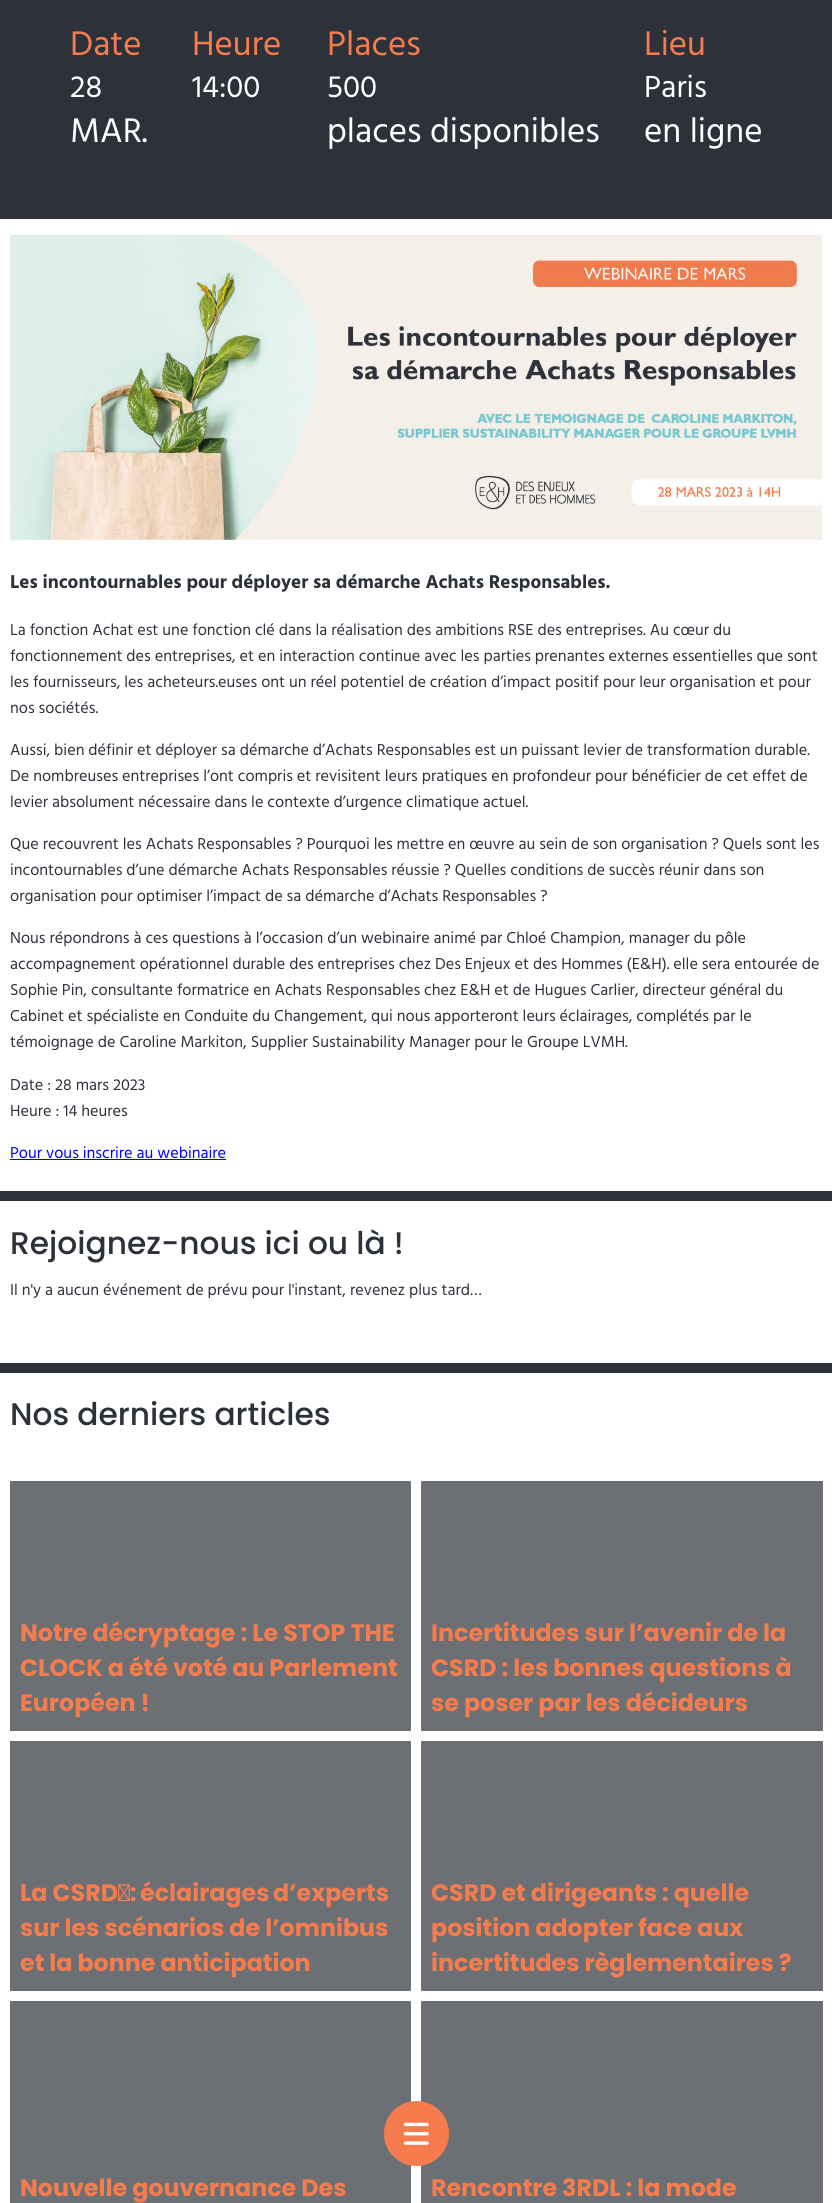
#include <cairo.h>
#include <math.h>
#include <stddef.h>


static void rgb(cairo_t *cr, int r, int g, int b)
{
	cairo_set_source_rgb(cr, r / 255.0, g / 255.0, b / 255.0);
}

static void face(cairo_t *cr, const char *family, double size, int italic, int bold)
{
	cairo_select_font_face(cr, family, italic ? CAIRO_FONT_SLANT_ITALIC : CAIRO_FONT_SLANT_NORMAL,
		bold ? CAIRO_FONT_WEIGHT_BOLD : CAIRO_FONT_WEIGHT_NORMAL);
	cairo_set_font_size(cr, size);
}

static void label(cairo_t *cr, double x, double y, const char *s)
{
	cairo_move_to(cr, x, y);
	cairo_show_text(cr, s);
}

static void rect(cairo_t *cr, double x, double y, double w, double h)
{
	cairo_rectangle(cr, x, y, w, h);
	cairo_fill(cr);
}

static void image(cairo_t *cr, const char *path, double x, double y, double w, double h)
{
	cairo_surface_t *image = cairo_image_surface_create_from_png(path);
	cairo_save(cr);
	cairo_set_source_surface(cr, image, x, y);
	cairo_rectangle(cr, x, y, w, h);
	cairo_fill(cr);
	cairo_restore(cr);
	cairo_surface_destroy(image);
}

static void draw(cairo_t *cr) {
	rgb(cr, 255, 255, 255);
	cairo_paint(cr);
	rgb(cr, 45, 50, 58);
	rect(cr, 0, 0, 832, 219);
	face(cr, "Hind Vadodara", 35, 0, 0);
	rgb(cr, 246, 124, 77);
	label(cr, 70, 55, "Date");
	face(cr, "Hind Vadodara", 31.25, 0, 0);
	rgb(cr, 255, 255, 255);
	label(cr, 70, 97, "28");
	face(cr, "Hind Vadodara", 35, 0, 0);
	label(cr, 70, 142, "MAR.");
	rgb(cr, 246, 124, 77);
	label(cr, 192, 55, "Heure");
	face(cr, "Hind Vadodara", 31.25, 0, 0);
	rgb(cr, 255, 255, 255);
	label(cr, 192, 97, "14:00");
	face(cr, "Hind Vadodara", 35, 0, 0);
	rgb(cr, 246, 124, 77);
	label(cr, 327, 55, "Places");
	face(cr, "Hind Vadodara", 31.25, 0, 0);
	rgb(cr, 255, 255, 255);
	label(cr, 327, 97, "500");
	face(cr, "Hind Vadodara", 35, 0, 0);
	label(cr, 327, 142, "places disponibles");
	rgb(cr, 246, 124, 77);
	label(cr, 644, 55, "Lieu");
	face(cr, "Hind Vadodara", 31.25, 0, 0);
	rgb(cr, 255, 255, 255);
	label(cr, 644, 97, "Paris");
	face(cr, "Hind Vadodara", 35, 0, 0);
	label(cr, 644, 142, "en ligne");
	rgb(cr, 45, 50, 58);
	rect(cr, 0, 1191, 832, 10);
	image(cr, "image0.png", 10, 234, 813, 306);
	face(cr, "Hind Vadodara", 19, 0, 1);
	label(cr, 10, 588, "Les incontournables pour déployer sa démarche Achats Responsables.");
	face(cr, "Hind Vadodara", 16.25, 0, 0);
	label(cr, 10, 635, "La fonction Achat est une fonction clé dans la réalisation des ambitions RSE des entreprises. Au cœur du");
	label(cr, 10, 661, "fonctionnement des entreprises, et en interaction continue avec les parties prenantes externes essentielles que sont");
	label(cr, 10, 687, "les fournisseurs, les acheteurs.euses ont un réel potentiel de création d’impact positif pour leur organisation et pour");
	label(cr, 10, 713, "nos sociétés.");
	label(cr, 10, 755, "Aussi, bien définir et déployer sa démarche d’Achats Responsables est un puissant levier de transformation durable.");
	label(cr, 10, 781, "De nombreuses entreprises l’ont compris et revisitent leurs pratiques en profondeur pour bénéficier de cet effet de");
	label(cr, 10, 807, "levier absolument nécessaire dans le contexte d’urgence climatique actuel.");
	label(cr, 10, 849, "Que recouvrent les Achats Responsables ? Pourquoi les mettre en œuvre au sein de son organisation ? Quels sont les");
	label(cr, 10, 875, "incontournables d’une démarche Achats Responsables réussie ? Quelles conditions de succès réunir dans son");
	label(cr, 10, 901, "organisation pour optimiser l’impact de sa démarche d’Achats Responsables ?");
	label(cr, 10, 943, "Nous répondrons à ces questions à l’occasion d’un webinaire animé par Chloé Champion, manager du pôle");
	label(cr, 10, 969, "accompagnement opérationnel durable des entreprises chez Des Enjeux et des Hommes (E&H). elle sera entourée de");
	label(cr, 10, 995, "Sophie Pin, consultante formatrice en Achats Responsables chez E&H et de Hugues Carlier, directeur général du");
	label(cr, 10, 1021, "Cabinet et spécialiste en Conduite du Changement, qui nous apporteront leurs éclairages, complétés par le");
	label(cr, 10, 1047, "témoignage de Caroline Markiton, Supplier Sustainability Manager pour le Groupe LVMH.");
	label(cr, 10, 1090, "Date : 28 mars 2023");
	label(cr, 10, 1116, "Heure : 14 heures");
	rgb(cr, 0, 0, 255);
	label(cr, 10, 1158, "Pour vous inscrire au webinaire");
	rect(cr, 10, 1159, 216, 1);
	rgb(cr, 45, 50, 58);
	rect(cr, 0, 1363, 832, 10);
	face(cr, "Poppins Medium", 31.25, 0, 0);
	label(cr, 10, 1254, "Rejoignez-nous ici ou là !");
	face(cr, "Hind Vadodara", 16.25, 0, 0);
	label(cr, 10, 1295, "Il n'y a aucun événement de prévu pour l'instant, revenez plus tard…");
	face(cr, "Poppins Medium", 31.25, 0, 0);
	label(cr, 10, 1425, "Nos derniers articles");
	rgb(cr, 108, 112, 117);
	rect(cr, 10, 1481, 401, 250);
	face(cr, "Poppins", 23.75, 0, 1);
	rgb(cr, 246, 124, 77);
	label(cr, 20, 1641, "Notre décryptage : Le STOP THE");
	label(cr, 20, 1676, "CLOCK a été voté au Parlement");
	label(cr, 20, 1711, "Européen !");
	rgb(cr, 108, 112, 117);
	rect(cr, 421, 1481, 402, 250);
	rgb(cr, 246, 124, 77);
	label(cr, 431, 1641, "Incertitudes sur l’avenir de la");
	label(cr, 431, 1676, "CSRD : les bonnes questions à");
	label(cr, 431, 1711, "se poser par les décideurs");
	rgb(cr, 108, 112, 117);
	rect(cr, 10, 1741, 401, 250);
	rgb(cr, 246, 124, 77);
	label(cr, 20, 1901, "La CSRD :");
	label(cr, 140, 1901, "éclairages");
	label(cr, 273, 1901, "d’experts");
	label(cr, 20, 1936, "sur les scénarios de l’omnibus");
	label(cr, 20, 1971, "et la bonne anticipation");
	rgb(cr, 108, 112, 117);
	rect(cr, 421, 1741, 402, 250);
	rgb(cr, 246, 124, 77);
	label(cr, 431, 1901, "CSRD et dirigeants : quelle");
	label(cr, 431, 1936, "position adopter face aux");
	label(cr, 431, 1971, "incertitudes règlementaires ?");
	rgb(cr, 108, 112, 117);
	rect(cr, 10, 2001, 401, 202);
	rgb(cr, 246, 124, 77);
	label(cr, 20, 2196, "Nouvelle gouvernance Des");
	rgb(cr, 108, 112, 117);
	rect(cr, 421, 2001, 402, 202);
	rgb(cr, 246, 124, 77);
	label(cr, 431, 2196, "Rencontre 3RDL : la mode");
	cairo_new_path(cr);
	cairo_arc(cr, 416.5, 2133.5, 32.5, 0, 2 * M_PI);
	cairo_fill(cr);
	image(cr, "image1.png", 403, 2122, 26, 23);
}

int main(void) {
	cairo_surface_t *surface = cairo_image_surface_create(CAIRO_FORMAT_RGB24, 832, 2203);
	cairo_t *cr = cairo_create(surface);
	cairo_font_options_t *options = cairo_font_options_create();
	cairo_font_options_set_hint_metrics(options, CAIRO_HINT_METRICS_OFF);
	cairo_font_options_set_hint_style(options, CAIRO_HINT_STYLE_NONE);
	cairo_set_font_options(cr, options);
	cairo_set_miter_limit(cr, 4);
	draw(cr);
	cairo_surface_write_to_png(surface, "render.png");
	cairo_font_options_destroy(options);
	cairo_destroy(cr);
	cairo_surface_destroy(surface);
	return 0;
}
